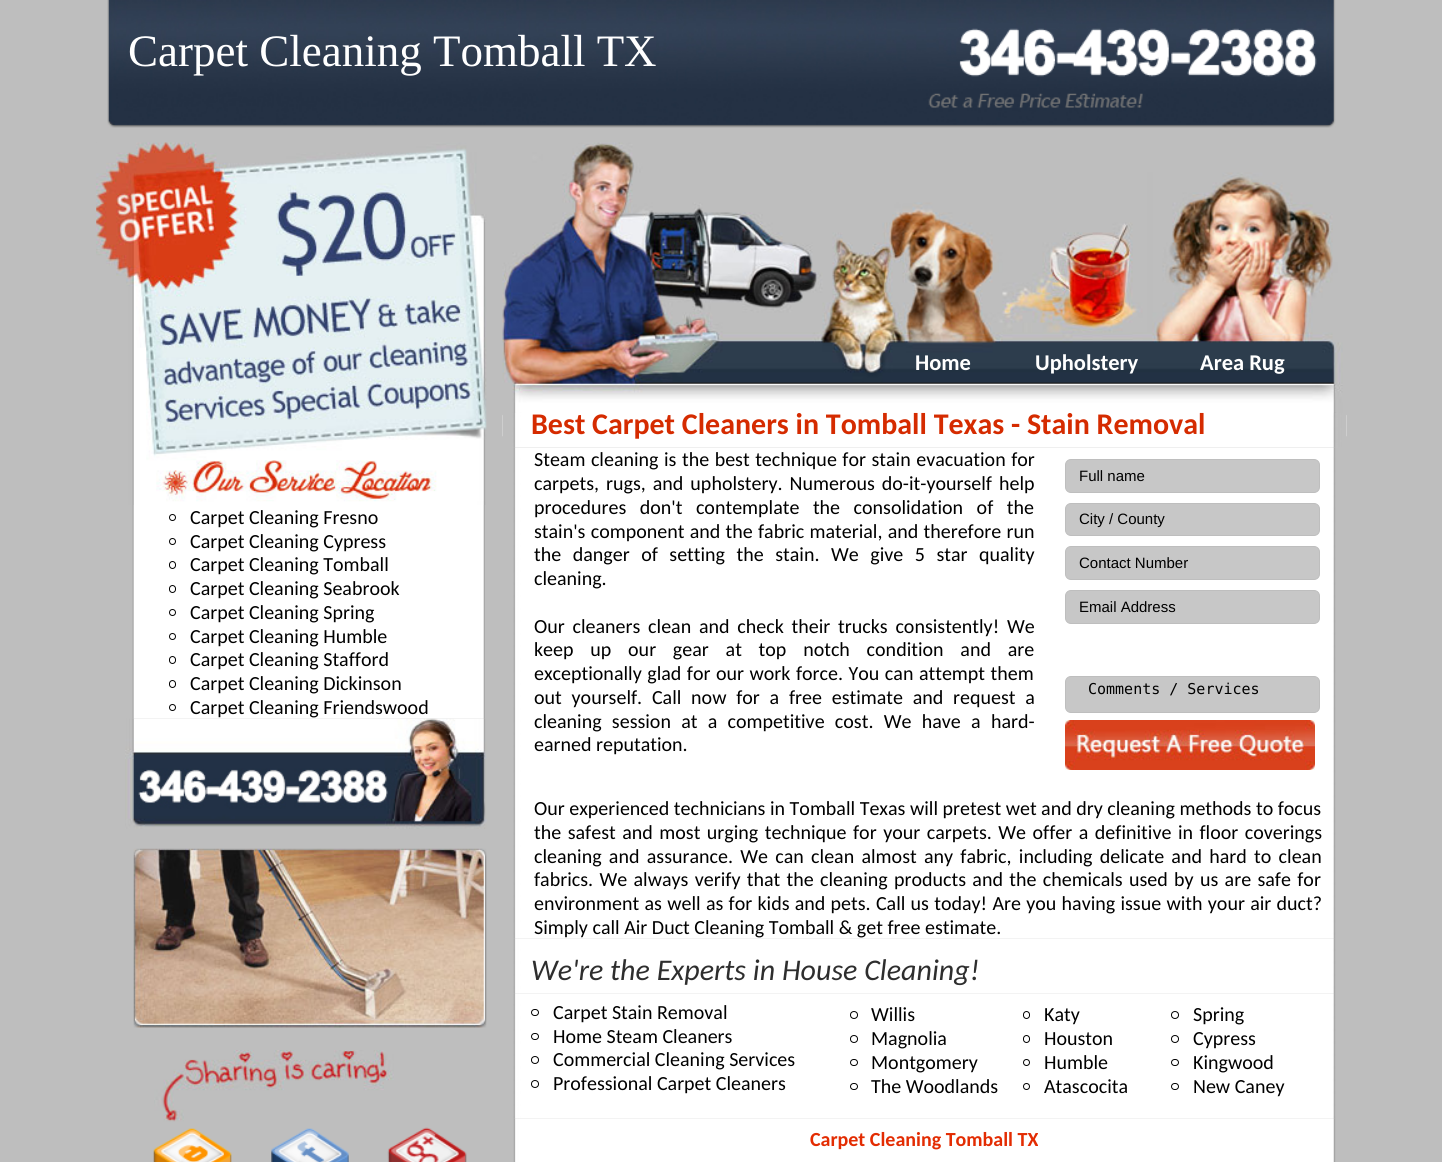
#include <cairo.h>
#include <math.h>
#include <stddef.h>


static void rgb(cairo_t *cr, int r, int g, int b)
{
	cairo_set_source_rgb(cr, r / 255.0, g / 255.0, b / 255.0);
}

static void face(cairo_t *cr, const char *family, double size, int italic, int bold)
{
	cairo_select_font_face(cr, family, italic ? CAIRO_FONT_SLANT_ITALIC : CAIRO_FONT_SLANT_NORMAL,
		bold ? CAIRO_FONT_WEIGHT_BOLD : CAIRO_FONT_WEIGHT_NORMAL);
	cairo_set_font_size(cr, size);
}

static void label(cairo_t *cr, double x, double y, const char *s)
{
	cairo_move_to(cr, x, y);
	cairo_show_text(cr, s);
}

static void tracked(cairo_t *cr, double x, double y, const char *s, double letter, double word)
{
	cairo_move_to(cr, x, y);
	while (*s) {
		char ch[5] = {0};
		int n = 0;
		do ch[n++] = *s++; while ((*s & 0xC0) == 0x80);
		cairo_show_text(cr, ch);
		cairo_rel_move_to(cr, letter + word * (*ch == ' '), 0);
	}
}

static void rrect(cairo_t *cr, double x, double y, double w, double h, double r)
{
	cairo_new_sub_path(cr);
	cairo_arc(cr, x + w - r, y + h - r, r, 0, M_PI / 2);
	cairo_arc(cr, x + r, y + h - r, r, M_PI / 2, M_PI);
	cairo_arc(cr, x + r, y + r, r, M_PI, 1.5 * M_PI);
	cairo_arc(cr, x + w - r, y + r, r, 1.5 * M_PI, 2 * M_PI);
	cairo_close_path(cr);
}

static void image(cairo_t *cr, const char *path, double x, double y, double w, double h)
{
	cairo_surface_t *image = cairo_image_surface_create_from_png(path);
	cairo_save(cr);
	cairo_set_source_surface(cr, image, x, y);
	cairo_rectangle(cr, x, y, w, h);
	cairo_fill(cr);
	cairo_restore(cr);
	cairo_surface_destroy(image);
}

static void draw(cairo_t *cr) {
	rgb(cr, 190, 190, 190);
	cairo_paint(cr);
	image(cr, "image0.png", 107, 0, 1229, 128);
	face(cr, "Liberation Serif", 45, 0, 0);
	rgb(cr, 255, 255, 255);
	label(cr, 128, 66, "Carpet Cleaning Tomball TX");
	image(cr, "image1.png", 928, 28, 389, 80);
	image(cr, "image2.png", 96, 142, 391, 363);
	image(cr, "image3.png", 132, 505, 353, 214);
	cairo_arc(cr, 172.5, 517.5, 3, 0, 2 * M_PI);
	rgb(cr, 0, 0, 0);
	cairo_set_line_width(cr, 1);
	cairo_stroke(cr);
	face(cr, "Carlito", 20, 0, 0);
	label(cr, 190, 524, "Carpet Cleaning Fresno");
	cairo_new_path(cr);
	cairo_arc(cr, 172.5, 541.5, 3, 0, 2 * M_PI);
	cairo_stroke(cr);
	label(cr, 190, 548, "Carpet Cleaning Cypress");
	rrect(cr, 169.5, 561.5, 6, 7, 3);
	cairo_stroke(cr);
	label(cr, 190, 571, "Carpet Cleaning Tomball");
	rrect(cr, 169.5, 585.5, 6, 7, 3);
	cairo_stroke(cr);
	label(cr, 190, 595, "Carpet Cleaning Seabrook");
	cairo_new_path(cr);
	cairo_arc(cr, 172.5, 612.5, 3, 0, 2 * M_PI);
	cairo_stroke(cr);
	label(cr, 190, 619, "Carpet Cleaning Spring");
	cairo_new_path(cr);
	cairo_arc(cr, 172.5, 636.5, 3, 0, 2 * M_PI);
	cairo_stroke(cr);
	label(cr, 190, 643, "Carpet Cleaning Humble");
	rrect(cr, 169.5, 656.5, 6, 7, 3);
	cairo_stroke(cr);
	label(cr, 190, 666, "Carpet Cleaning Stafford");
	rrect(cr, 169.5, 680.5, 6, 7, 3);
	cairo_stroke(cr);
	label(cr, 190, 690, "Carpet Cleaning Dickinson");
	cairo_new_path(cr);
	cairo_arc(cr, 172.5, 707.5, 3, 0, 2 * M_PI);
	cairo_stroke(cr);
	label(cr, 190, 714, "Carpet Cleaning Friendswood");
	image(cr, "image4.png", 125, 718, 362, 111);
	image(cr, "image5.png", 133, 848, 354, 180);
	image(cr, "image6.png", 154, 1050, 240, 72);
	image(cr, "image7.png", 153, 1128, 79, 34);
	image(cr, "image8.png", 271, 1128, 78, 34);
	image(cr, "image9.png", 387, 1127, 80, 35);
	image(cr, "image10.png", 502, 142, 845, 295);
	face(cr, "Carlito", 22.5, 0, 1);
	rgb(cr, 255, 255, 255);
	label(cr, 915, 370, "Home");
	label(cr, 1035, 370, "Upholstery");
	label(cr, 1200, 370, "Area Rug");
	image(cr, "image11.png", 502, 413, 844, 35);
	face(cr, "Carlito", 30, 0, 1);
	rgb(cr, 213, 43, 0);
	label(cr, 531, 434, "Best Carpet Cleaners in Tomball Texas - Stain Removal");
	image(cr, "image12.png", 513, 447, 823, 492);
	face(cr, "Carlito", 20, 0, 0);
	rgb(cr, 0, 0, 0);
	tracked(cr, 534, 466, "Steam cleaning is the best technique for stain evacuation for", 0, 1);
	tracked(cr, 534, 490, "carpets, rugs, and upholstery. Numerous do-it-yourself help", 0, 2.5);
	tracked(cr, 534, 514, "procedures don't contemplate the consolidation of the", 0, 9);
	tracked(cr, 534, 538, "stain's component and the fabric material, and therefore run", 0, 0.75);
	tracked(cr, 534, 561, "the danger of setting the stain. We give 5 star quality", 0, 7);
	label(cr, 534, 585, "cleaning.");
	tracked(cr, 534, 633, "Our cleaners clean and check their trucks consistently! We", 0, 3.25);
	tracked(cr, 534, 656, "keep up our gear at top notch condition and are", 0, 12.25);
	tracked(cr, 534, 680, "exceptionally glad for our work force. You can attempt them", 0, 1);
	tracked(cr, 534, 704, "out yourself. Call now for a free estimate and request a", 0, 5.25);
	tracked(cr, 534, 728, "cleaning session at a competitive cost. We have a hard-", 0, 5.75);
	label(cr, 534, 751, "earned reputation.");
	rgb(cr, 199, 199, 199);
	rrect(cr, 1065.5, 459.5, 254, 33, 5.5);
	cairo_fill_preserve(cr);
	rgb(cr, 190, 190, 190);
	cairo_stroke(cr);
	face(cr, "Liberation Sans", 15, 0, 0);
	rgb(cr, 0, 0, 0);
	label(cr, 1079, 481, "Full name");
	rgb(cr, 199, 199, 199);
	rrect(cr, 1065.5, 503.5, 254, 32, 5.5);
	cairo_fill_preserve(cr);
	rgb(cr, 190, 190, 190);
	cairo_stroke(cr);
	rgb(cr, 0, 0, 0);
	label(cr, 1079, 524, "City / County");
	rgb(cr, 199, 199, 199);
	rrect(cr, 1065.5, 546.5, 254, 33, 5.5);
	cairo_fill_preserve(cr);
	rgb(cr, 190, 190, 190);
	cairo_stroke(cr);
	rgb(cr, 0, 0, 0);
	label(cr, 1079, 568, "Contact Number");
	rgb(cr, 199, 199, 199);
	rrect(cr, 1065.5, 590.5, 254, 33, 5.5);
	cairo_fill_preserve(cr);
	rgb(cr, 190, 190, 190);
	cairo_stroke(cr);
	rgb(cr, 0, 0, 0);
	label(cr, 1079, 612, "Email Address");
	rgb(cr, 199, 199, 199);
	rrect(cr, 1065.5, 676.5, 254, 36, 5.5);
	cairo_fill_preserve(cr);
	rgb(cr, 190, 190, 190);
	cairo_stroke(cr);
	face(cr, "DejaVu Sans Mono", 15, 0, 0);
	rgb(cr, 0, 0, 0);
	label(cr, 1088, 694, "Comments / Services");
	image(cr, "image13.png", 1065, 720, 250, 50);
	face(cr, "Carlito", 20, 0, 0);
	label(cr, 534, 815, "Our experienced technicians in Tomball Texas will pretest wet and dry cleaning methods to focus");
	tracked(cr, 534, 839, "the safest and most urging technique for your carpets. We offer a definitive in floor coverings", 0, 2);
	tracked(cr, 534, 863, "cleaning and assurance. We can clean almost any fabric, including delicate and hard to clean", 0, 2.75);
	tracked(cr, 534, 886, "fabrics. We always verify that the cleaning products and the chemicals used by us are safe for", 0, 1.8);
	tracked(cr, 534, 910, "environment as well as for kids and pets. Call us today! Are you having issue with your air duct?", 0, 0.75);
	label(cr, 534, 934, "Simply call Air Duct Cleaning Tomball & get free estimate.");
	image(cr, "image14.png", 513, 938, 823, 56);
	face(cr, "Carlito", 30, 1, 0);
	rgb(cr, 46, 46, 46);
	label(cr, 531, 980, "We're the Experts in House Cleaning!");
	image(cr, "image15.png", 513, 993, 823, 126);
	rrect(cr, 531.5, 1009.5, 7, 6, 3);
	rgb(cr, 0, 0, 0);
	cairo_stroke(cr);
	face(cr, "Carlito", 20, 0, 0);
	label(cr, 553, 1019, "Carpet Stain Removal");
	rrect(cr, 531.5, 1033.5, 7, 6, 3);
	cairo_stroke(cr);
	label(cr, 553, 1043, "Home Steam Cleaners");
	cairo_new_path(cr);
	cairo_arc(cr, 535, 1060, 3.5, 0, 2 * M_PI);
	cairo_stroke(cr);
	label(cr, 553, 1066, "Commercial Cleaning Services");
	cairo_new_path(cr);
	cairo_arc(cr, 535, 1084, 3.5, 0, 2 * M_PI);
	cairo_stroke(cr);
	label(cr, 553, 1090, "Professional Carpet Cleaners");
	cairo_new_path(cr);
	cairo_arc(cr, 854, 1015, 3.5, 0, 2 * M_PI);
	cairo_stroke(cr);
	label(cr, 871, 1021, "Willis");
	cairo_new_path(cr);
	cairo_arc(cr, 854, 1039, 3.5, 0, 2 * M_PI);
	cairo_stroke(cr);
	label(cr, 871, 1045, "Magnolia");
	rrect(cr, 850.5, 1059.5, 7, 6, 3);
	cairo_stroke(cr);
	label(cr, 871, 1069, "Montgomery");
	rrect(cr, 850.5, 1083.5, 7, 6, 3);
	cairo_stroke(cr);
	label(cr, 871, 1093, "The Woodlands");
	rrect(cr, 1023.5, 1011.5, 6, 7, 3);
	cairo_stroke(cr);
	label(cr, 1044, 1021, "Katy");
	rrect(cr, 1023.5, 1035.5, 6, 7, 3);
	cairo_stroke(cr);
	label(cr, 1044, 1045, "Houston");
	cairo_new_path(cr);
	cairo_arc(cr, 1026.5, 1062.5, 3, 0, 2 * M_PI);
	cairo_stroke(cr);
	label(cr, 1044, 1069, "Humble");
	cairo_new_path(cr);
	cairo_arc(cr, 1026.5, 1086.5, 3, 0, 2 * M_PI);
	cairo_stroke(cr);
	label(cr, 1044, 1093, "Atascocita");
	cairo_new_path(cr);
	cairo_arc(cr, 1175, 1015, 3.5, 0, 2 * M_PI);
	cairo_stroke(cr);
	label(cr, 1193, 1021, "Spring");
	cairo_new_path(cr);
	cairo_arc(cr, 1175, 1039, 3.5, 0, 2 * M_PI);
	cairo_stroke(cr);
	label(cr, 1193, 1045, "Cypress");
	rrect(cr, 1171.5, 1059.5, 7, 6, 3);
	cairo_stroke(cr);
	label(cr, 1193, 1069, "Kingwood");
	rrect(cr, 1171.5, 1083.5, 7, 6, 3);
	cairo_stroke(cr);
	label(cr, 1193, 1093, "New Caney");
	image(cr, "image16.png", 513, 1118, 823, 44);
	face(cr, "Carlito", 20, 0, 1);
	rgb(cr, 227, 44, 2);
	label(cr, 810, 1146, "Carpet Cleaning Tomball TX");
}

int main(void) {
	cairo_surface_t *surface = cairo_image_surface_create(CAIRO_FORMAT_RGB24, 1442, 1162);
	cairo_t *cr = cairo_create(surface);
	cairo_font_options_t *options = cairo_font_options_create();
	cairo_font_options_set_hint_metrics(options, CAIRO_HINT_METRICS_OFF);
	cairo_font_options_set_hint_style(options, CAIRO_HINT_STYLE_NONE);
	cairo_set_font_options(cr, options);
	cairo_set_miter_limit(cr, 4);
	draw(cr);
	cairo_surface_write_to_png(surface, "render.png");
	cairo_font_options_destroy(options);
	cairo_destroy(cr);
	cairo_surface_destroy(surface);
	return 0;
}
